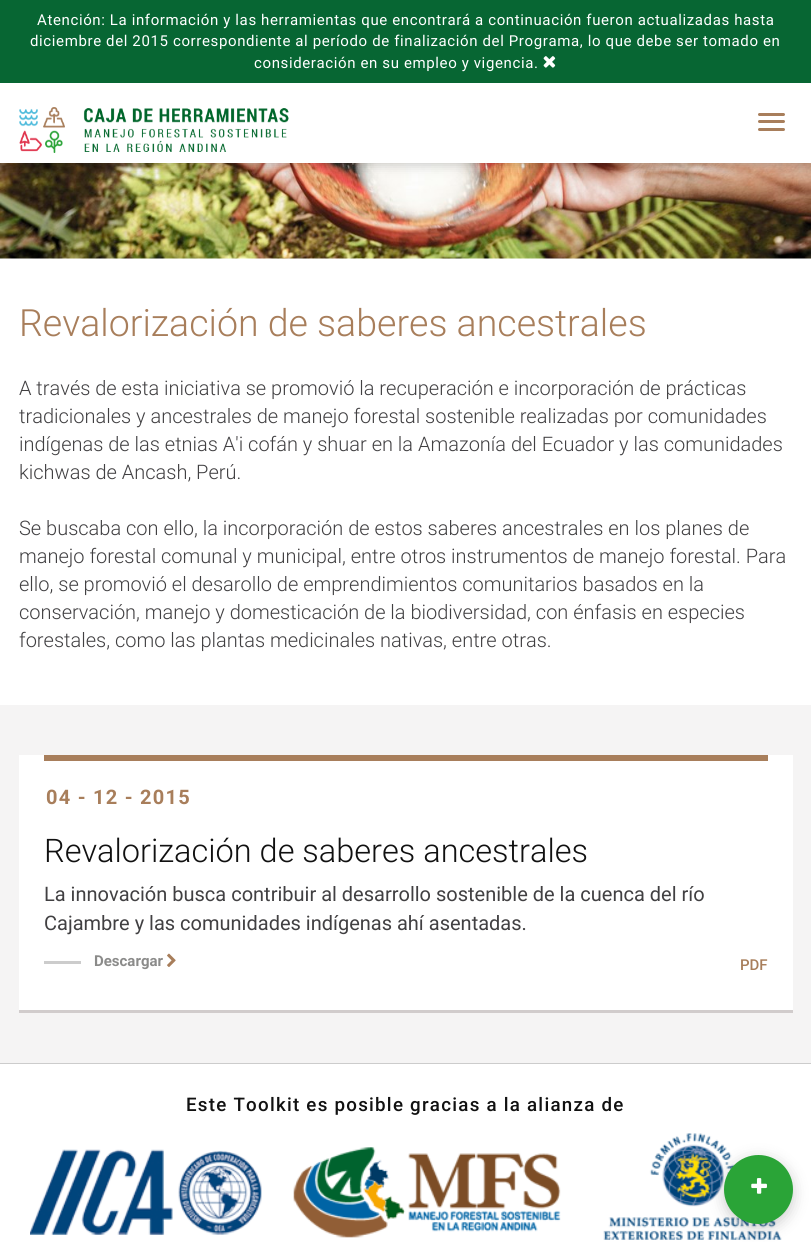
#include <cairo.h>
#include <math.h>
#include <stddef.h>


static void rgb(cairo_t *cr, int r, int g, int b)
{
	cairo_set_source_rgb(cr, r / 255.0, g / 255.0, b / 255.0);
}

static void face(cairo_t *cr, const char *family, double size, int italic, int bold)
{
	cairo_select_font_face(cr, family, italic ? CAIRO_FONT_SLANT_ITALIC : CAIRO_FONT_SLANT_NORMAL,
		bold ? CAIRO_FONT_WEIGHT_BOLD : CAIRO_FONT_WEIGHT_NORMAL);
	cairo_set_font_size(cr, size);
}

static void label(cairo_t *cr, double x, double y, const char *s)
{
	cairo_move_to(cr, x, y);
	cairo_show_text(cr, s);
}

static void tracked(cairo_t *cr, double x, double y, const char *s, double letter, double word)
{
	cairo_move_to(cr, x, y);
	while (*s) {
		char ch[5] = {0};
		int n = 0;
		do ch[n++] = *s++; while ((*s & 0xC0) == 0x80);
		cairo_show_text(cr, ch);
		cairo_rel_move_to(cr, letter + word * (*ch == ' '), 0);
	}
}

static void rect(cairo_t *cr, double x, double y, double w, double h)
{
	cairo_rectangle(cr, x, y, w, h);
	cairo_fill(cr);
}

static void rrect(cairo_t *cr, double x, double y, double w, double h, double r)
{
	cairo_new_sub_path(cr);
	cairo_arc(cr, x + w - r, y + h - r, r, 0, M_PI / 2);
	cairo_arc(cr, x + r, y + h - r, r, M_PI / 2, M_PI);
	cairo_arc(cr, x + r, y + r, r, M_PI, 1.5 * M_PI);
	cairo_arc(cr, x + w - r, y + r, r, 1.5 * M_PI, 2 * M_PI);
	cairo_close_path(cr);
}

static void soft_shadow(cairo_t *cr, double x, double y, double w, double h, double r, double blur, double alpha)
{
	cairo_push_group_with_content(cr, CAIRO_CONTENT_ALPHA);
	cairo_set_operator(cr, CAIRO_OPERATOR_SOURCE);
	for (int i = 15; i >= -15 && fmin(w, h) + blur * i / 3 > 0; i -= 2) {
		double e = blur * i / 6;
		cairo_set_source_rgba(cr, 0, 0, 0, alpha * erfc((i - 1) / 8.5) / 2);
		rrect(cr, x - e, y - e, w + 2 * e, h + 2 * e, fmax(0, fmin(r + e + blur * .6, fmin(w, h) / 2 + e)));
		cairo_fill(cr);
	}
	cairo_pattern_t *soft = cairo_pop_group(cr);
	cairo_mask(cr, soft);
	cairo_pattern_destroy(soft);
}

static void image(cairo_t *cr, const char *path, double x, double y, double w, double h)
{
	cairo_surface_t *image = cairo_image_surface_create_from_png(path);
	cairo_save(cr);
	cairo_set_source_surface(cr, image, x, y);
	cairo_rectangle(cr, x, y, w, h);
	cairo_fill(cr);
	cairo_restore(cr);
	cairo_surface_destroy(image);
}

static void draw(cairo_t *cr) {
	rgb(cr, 255, 255, 255);
	cairo_paint(cr);
	image(cr, "image2.png", 0, 163, 811, 96);
	rgb(cr, 0, 0, 0);
	soft_shadow(cr, 0, 3, 811, 162, 0, 6, 0.2);
	rgb(cr, 255, 255, 255);
	rect(cr, 0, 83, 811, 80);
	rgb(cr, 7, 102, 51);
	rect(cr, 0, 0, 811, 83);
	face(cr, "Roboto", 15, 0, 0);
	rgb(cr, 255, 255, 255);
	tracked(cr, 37, 25, "Atención: La información y las herramientas que encontrará a continuación fueron actualizadas hasta", 0.62, 0);
	tracked(cr, 30, 46, "diciembre del 2015 correspondiente al período de finalización del Programa, lo que debe ser tomado en", 0.62, 0);
	tracked(cr, 254, 68, "consideración en su empleo y vigencia.", 0.62, 0);
	image(cr, "image0.png", 543, 56, 13, 12);
	image(cr, "image1.png", 19, 107, 270, 46);
	rgb(cr, 168, 126, 91);
	rrect(cr, 758, 113, 27, 3, 1.5);
	cairo_fill(cr);
	rrect(cr, 758, 120, 27, 3, 1.5);
	cairo_fill(cr);
	rrect(cr, 758, 128, 27, 3, 1.5);
	cairo_fill(cr);
	face(cr, "Roboto Light", 37.5, 0, 0);
	label(cr, 19, 336, "Revalorización de saberes ancestrales");
	face(cr, "Roboto Light", 20, 0, 0);
	rgb(cr, 65, 64, 66);
	label(cr, 19, 395, "A través de esta iniciativa se promovió la recuperación e incorporación de prácticas");
	label(cr, 19, 423, "tradicionales y ancestrales de manejo forestal sostenible realizadas por comunidades");
	label(cr, 19, 451, "indígenas de las etnias A'i cofán y shuar en la Amazonía del Ecuador y las comunidades");
	label(cr, 19, 479, "kichwas de Ancash, Perú.");
	label(cr, 19, 535, "Se buscaba con ello, la incorporación de estos saberes ancestrales en los planes de");
	label(cr, 19, 563, "manejo forestal comunal y municipal, entre otros instrumentos de manejo forestal. Para");
	label(cr, 19, 591, "ello, se promovió el desarollo de emprendimientos comunitarios basados en la");
	label(cr, 19, 619, "conservación, manejo y domesticación de la biodiversidad, con énfasis en especies");
	label(cr, 19, 647, "forestales, como las plantas medicinales nativas, entre otras.");
	rgb(cr, 245, 244, 244);
	rect(cr, 0, 705, 811, 358);
	rgb(cr, 255, 255, 255);
	rect(cr, 19, 755, 774, 255);
	rgb(cr, 209, 204, 204);
	rect(cr, 19, 1010, 774, 3);
	rgb(cr, 168, 126, 91);
	rect(cr, 44, 755, 724, 6);
	face(cr, "Roboto", 20, 0, 1);
	tracked(cr, 46, 804, "04 - 12 - 2015", 1.25, 0);
	face(cr, "Roboto Light", 32.5, 0, 0);
	rgb(cr, 17, 17, 17);
	label(cr, 44, 862, "Revalorización de saberes ancestrales");
	face(cr, "Roboto", 20, 0, 0);
	rgb(cr, 65, 64, 66);
	label(cr, 44, 901, "La innovación busca contribuir al desarrollo sostenible de la cuenca del río");
	label(cr, 44, 930, "Cajambre y las comunidades indígenas ahí asentadas.");
	rgb(cr, 204, 204, 204);
	rect(cr, 44, 961, 37, 3);
	face(cr, "Roboto", 15, 0, 1);
	rgb(cr, 139, 139, 138);
	label(cr, 94, 966, "Descargar");
	image(cr, "image3.png", 167, 953, 9, 14);
	face(cr, "Roboto Medium", 15, 0, 0);
	rgb(cr, 168, 126, 91);
	label(cr, 740, 970, "PDF");
	rgb(cr, 204, 204, 204);
	rect(cr, 0, 1063, 811, 1);
	face(cr, "Roboto Medium", 18.75, 0, 0);
	rgb(cr, 17, 17, 17);
	tracked(cr, 186, 1111, "Este Toolkit es posible gracias a la alianza de", 1.25, 0);
	image(cr, "image4.png", 30, 1133, 752, 107);
	rgb(cr, 0, 0, 0);
	soft_shadow(cr, 724, 1159, 69, 69, 34.5, 7.5, 0.2);
	rgb(cr, 42, 164, 55);
	cairo_arc(cr, 758.5, 1189.5, 34.5, 0, 2 * M_PI);
	cairo_fill(cr);
	image(cr, "image5.png", 751, 1178, 16, 16);
}

int main(void) {
	cairo_surface_t *surface = cairo_image_surface_create(CAIRO_FORMAT_RGB24, 811, 1242);
	cairo_t *cr = cairo_create(surface);
	cairo_font_options_t *options = cairo_font_options_create();
	cairo_font_options_set_hint_metrics(options, CAIRO_HINT_METRICS_OFF);
	cairo_font_options_set_hint_style(options, CAIRO_HINT_STYLE_NONE);
	cairo_set_font_options(cr, options);
	cairo_set_miter_limit(cr, 4);
	draw(cr);
	cairo_surface_write_to_png(surface, "render.png");
	cairo_font_options_destroy(options);
	cairo_destroy(cr);
	cairo_surface_destroy(surface);
	return 0;
}
